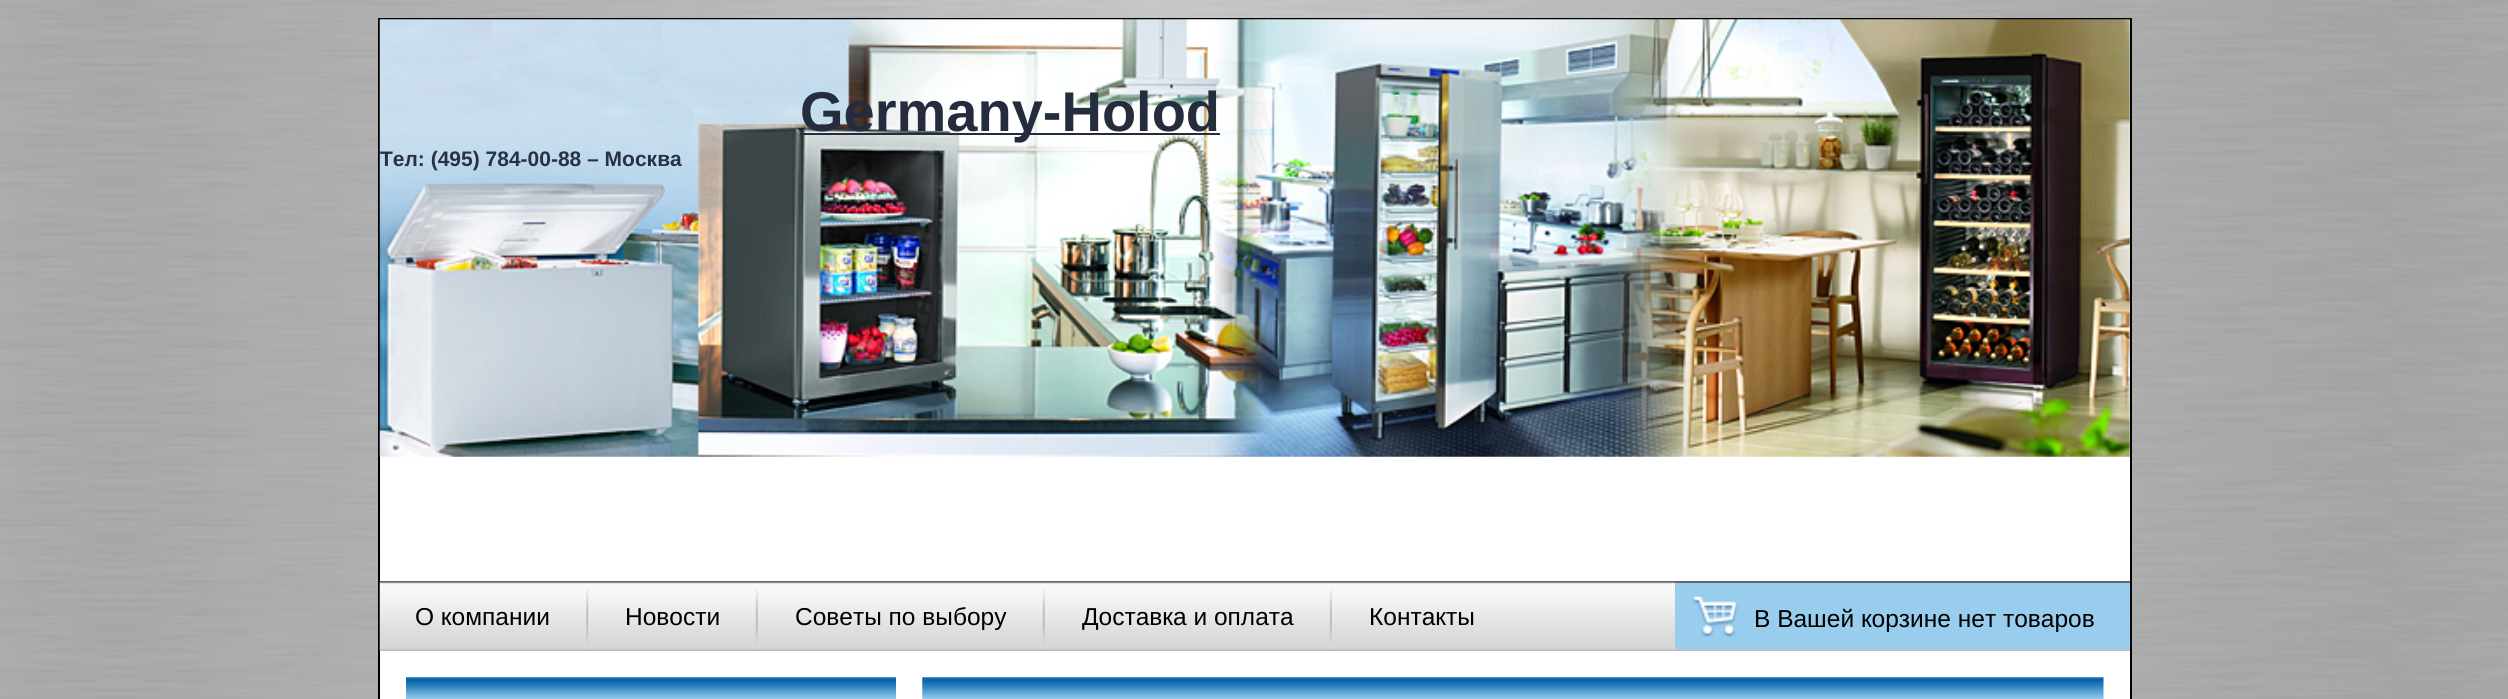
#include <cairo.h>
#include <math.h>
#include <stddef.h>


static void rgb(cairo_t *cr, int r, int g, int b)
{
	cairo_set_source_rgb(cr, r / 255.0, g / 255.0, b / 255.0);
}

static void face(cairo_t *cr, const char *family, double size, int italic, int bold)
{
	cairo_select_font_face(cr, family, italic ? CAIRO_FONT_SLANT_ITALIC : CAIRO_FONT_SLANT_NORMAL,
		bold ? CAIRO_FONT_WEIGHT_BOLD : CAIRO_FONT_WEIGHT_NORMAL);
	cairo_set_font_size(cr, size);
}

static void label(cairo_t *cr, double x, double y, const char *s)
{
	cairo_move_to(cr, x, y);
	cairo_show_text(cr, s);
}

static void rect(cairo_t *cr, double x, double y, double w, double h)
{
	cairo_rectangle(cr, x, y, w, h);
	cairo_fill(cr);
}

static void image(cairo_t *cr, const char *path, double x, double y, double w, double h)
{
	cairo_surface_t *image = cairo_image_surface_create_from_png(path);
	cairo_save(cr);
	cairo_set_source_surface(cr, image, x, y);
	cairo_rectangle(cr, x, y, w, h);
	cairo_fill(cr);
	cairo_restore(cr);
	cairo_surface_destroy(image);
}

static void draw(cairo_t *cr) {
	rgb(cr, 255, 255, 255);
	cairo_paint(cr);
	image(cr, "image0.png", 0, 0, 2508, 699);
	rgb(cr, 255, 255, 255);
	cairo_rectangle(cr, 379, 19, 1752, 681);
	cairo_fill_preserve(cr);
	rgb(cr, 0, 0, 0);
	cairo_stroke(cr);
	image(cr, "image1.png", 379, 19, 1751, 438);
	rgb(cr, 36, 44, 62);
	rect(cr, 800, 133, 420, 2);
	face(cr, "Liberation Sans", 56, 0, 1);
	label(cr, 800, 131, "Germany-Holod");
	face(cr, "Liberation Sans", 21, 0, 1);
	rgb(cr, 40, 49, 70);
	label(cr, 380, 166, "Тел: (495) 784-00-88 – Москва");
	image(cr, "image2.png", 379, 581, 1296, 70);
	face(cr, "Liberation Sans", 24.5, 0, 0);
	rgb(cr, 0, 0, 0);
	label(cr, 415, 625, "О компании");
	image(cr, "image3.png", 586, 588, 4, 63);
	label(cr, 625, 625, "Новости");
	image(cr, "image4.png", 755, 588, 4, 63);
	label(cr, 795, 625, "Советы по выбору");
	image(cr, "image4.png", 1042, 588, 4, 63);
	label(cr, 1082, 625, "Доставка и оплата");
	image(cr, "image4.png", 1329, 588, 4, 63);
	label(cr, 1369, 625, "Контакты");
	rgb(cr, 153, 205, 237);
	rect(cr, 1675, 583, 455, 66);
	image(cr, "image5.png", 1692, 596, 46, 41);
	rgb(cr, 102, 102, 102);
	rect(cr, 1675, 581, 455, 2);
	rgb(cr, 191, 191, 191);
	rect(cr, 1675, 649, 455, 2);
	rgb(cr, 0, 0, 0);
	label(cr, 1754, 627, "В Вашей корзине нет товаров");
	image(cr, "image6.png", 406, 677, 490, 22);
	image(cr, "image7.png", 922, 677, 1182, 22);
}

int main(void) {
	cairo_surface_t *surface = cairo_image_surface_create(CAIRO_FORMAT_RGB24, 2508, 699);
	cairo_t *cr = cairo_create(surface);
	cairo_font_options_t *options = cairo_font_options_create();
	cairo_font_options_set_hint_metrics(options, CAIRO_HINT_METRICS_OFF);
	cairo_font_options_set_hint_style(options, CAIRO_HINT_STYLE_NONE);
	cairo_set_font_options(cr, options);
	cairo_set_miter_limit(cr, 4);
	draw(cr);
	cairo_surface_write_to_png(surface, "render.png");
	cairo_font_options_destroy(options);
	cairo_destroy(cr);
	cairo_surface_destroy(surface);
	return 0;
}
